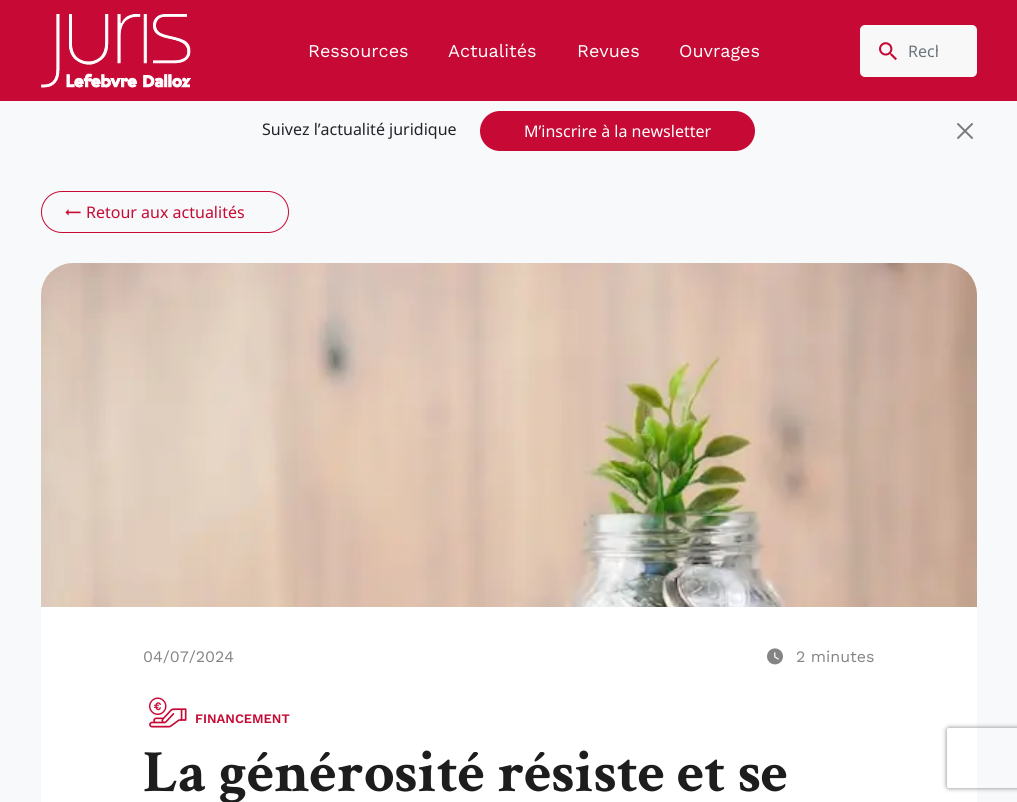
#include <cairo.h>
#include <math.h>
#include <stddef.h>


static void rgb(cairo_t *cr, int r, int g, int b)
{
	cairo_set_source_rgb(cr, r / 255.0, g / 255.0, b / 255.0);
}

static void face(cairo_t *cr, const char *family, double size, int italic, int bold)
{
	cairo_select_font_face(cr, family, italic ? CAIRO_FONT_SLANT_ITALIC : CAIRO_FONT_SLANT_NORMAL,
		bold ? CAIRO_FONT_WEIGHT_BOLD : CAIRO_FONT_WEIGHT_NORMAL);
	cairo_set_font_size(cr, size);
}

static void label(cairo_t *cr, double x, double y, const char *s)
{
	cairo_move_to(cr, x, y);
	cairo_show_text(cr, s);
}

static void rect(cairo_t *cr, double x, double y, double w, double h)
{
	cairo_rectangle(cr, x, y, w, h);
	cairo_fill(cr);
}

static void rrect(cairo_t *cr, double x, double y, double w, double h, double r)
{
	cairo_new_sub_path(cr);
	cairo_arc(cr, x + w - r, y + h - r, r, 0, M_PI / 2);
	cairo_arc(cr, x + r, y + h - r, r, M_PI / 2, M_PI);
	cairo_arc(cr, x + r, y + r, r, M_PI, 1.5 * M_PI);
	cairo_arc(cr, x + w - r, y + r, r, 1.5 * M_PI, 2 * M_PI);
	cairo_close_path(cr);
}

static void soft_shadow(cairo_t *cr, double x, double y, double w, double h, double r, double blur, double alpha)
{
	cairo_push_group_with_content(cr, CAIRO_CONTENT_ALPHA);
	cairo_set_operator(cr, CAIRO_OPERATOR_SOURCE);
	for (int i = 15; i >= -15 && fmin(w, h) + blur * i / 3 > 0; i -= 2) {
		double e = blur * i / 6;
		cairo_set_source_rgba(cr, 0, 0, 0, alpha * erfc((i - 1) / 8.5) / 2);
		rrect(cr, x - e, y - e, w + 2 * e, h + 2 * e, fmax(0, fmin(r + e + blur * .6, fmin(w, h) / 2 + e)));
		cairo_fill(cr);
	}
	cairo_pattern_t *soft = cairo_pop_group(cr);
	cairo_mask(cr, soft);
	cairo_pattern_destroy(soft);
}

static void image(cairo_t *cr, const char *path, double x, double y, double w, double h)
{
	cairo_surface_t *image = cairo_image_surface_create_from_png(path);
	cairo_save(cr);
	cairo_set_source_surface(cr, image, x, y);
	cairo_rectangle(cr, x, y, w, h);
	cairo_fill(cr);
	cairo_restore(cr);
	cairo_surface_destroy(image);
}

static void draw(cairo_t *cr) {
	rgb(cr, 198, 10, 53);
	cairo_paint(cr);
	image(cr, "image0.png", 41, 14, 150, 74);
	face(cr, "Work Sans", 18, 0, 0);
	rgb(cr, 255, 255, 255);
	label(cr, 308, 57, "Ressources");
	label(cr, 448, 57, "Actualités");
	label(cr, 577, 57, "Revues");
	label(cr, 679, 57, "Ouvrages");
	rgb(cr, 248, 248, 248);
	rrect(cr, 860, 25, 117, 52, 5);
	cairo_fill(cr);
	image(cr, "image1.png", 879, 42, 18, 19);
	cairo_save(cr);
	cairo_rectangle(cr, 908, 40, 30, 22);
	cairo_clip(cr);
	face(cr, "Noto Sans", 16, 0, 0);
	rgb(cr, 108, 117, 125);
	label(cr, 908, 57, "Rech");
	cairo_restore(cr);
	rgb(cr, 248, 249, 250);
	rect(cr, 0, 101, 1017, 701);
	face(cr, "Noto Sans", 16, 0, 0);
	rgb(cr, 33, 37, 41);
	label(cr, 262, 135, "Suivez l’actualité juridique");
	rgb(cr, 198, 10, 53);
	rrect(cr, 480, 111, 275, 40, 20);
	cairo_fill(cr);
	rgb(cr, 255, 255, 255);
	label(cr, 524, 137, "M’inscrire à la newsletter");
	image(cr, "image2.png", 957, 123, 16, 16);
	rrect(cr, 41.5, 191.5, 247, 41, 20.5);
	rgb(cr, 198, 10, 53);
	cairo_set_line_width(cr, 1);
	cairo_stroke(cr);
	image(cr, "image3.png", 65, 209, 16, 7);
	label(cr, 86, 218, "Retour aux actualités");
	image(cr, "image4.png", 41, 263, 936, 344);
	rgb(cr, 255, 255, 255);
	rect(cr, 41, 607, 936, 195);
	face(cr, "Work Sans", 16, 0, 0);
	rgb(cr, 132, 132, 132);
	label(cr, 143, 662, "04/07/2024");
	image(cr, "image5.png", 767, 648, 16, 17);
	label(cr, 796, 662, "2 minutes");
	image(cr, "image6.png", 149, 697, 38, 31);
	face(cr, "Work Sans SemiBold", 13, 0, 0);
	rgb(cr, 198, 10, 53);
	label(cr, 195, 723, "FINANCEMENT");
	face(cr, "Crimson Text", 60, 0, 1);
	rgb(cr, 29, 29, 29);
	label(cr, 143, 791, "La générosité résiste et se");
	cairo_save(cr);
	cairo_set_fill_rule(cr, CAIRO_FILL_RULE_EVEN_ODD);
	cairo_new_path(cr);
	cairo_move_to(cr, 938, 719);
	cairo_line_to(cr, 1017, 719);
	cairo_line_to(cr, 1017, 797);
	cairo_line_to(cr, 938, 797);
	cairo_close_path(cr);
	cairo_move_to(cr, 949, 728);
	cairo_line_to(cr, 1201, 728);
	cairo_curve_to(cr, 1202, 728, 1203, 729, 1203, 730);
	cairo_line_to(cr, 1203, 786);
	cairo_curve_to(cr, 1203, 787, 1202, 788, 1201, 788);
	cairo_line_to(cr, 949, 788);
	cairo_curve_to(cr, 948, 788, 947, 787, 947, 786);
	cairo_line_to(cr, 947, 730);
	cairo_curve_to(cr, 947, 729, 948, 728, 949, 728);
	cairo_close_path(cr);
	cairo_clip(cr);
	rgb(cr, 128, 128, 128);
	soft_shadow(cr, 947, 728, 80, 60, 2, 2.5, 1);
	cairo_restore(cr);
}

int main(void) {
	cairo_surface_t *surface = cairo_image_surface_create(CAIRO_FORMAT_RGB24, 1017, 802);
	cairo_t *cr = cairo_create(surface);
	cairo_font_options_t *options = cairo_font_options_create();
	cairo_font_options_set_hint_metrics(options, CAIRO_HINT_METRICS_OFF);
	cairo_font_options_set_hint_style(options, CAIRO_HINT_STYLE_NONE);
	cairo_set_font_options(cr, options);
	cairo_set_miter_limit(cr, 4);
	draw(cr);
	cairo_surface_write_to_png(surface, "render.png");
	cairo_font_options_destroy(options);
	cairo_destroy(cr);
	cairo_surface_destroy(surface);
	return 0;
}
